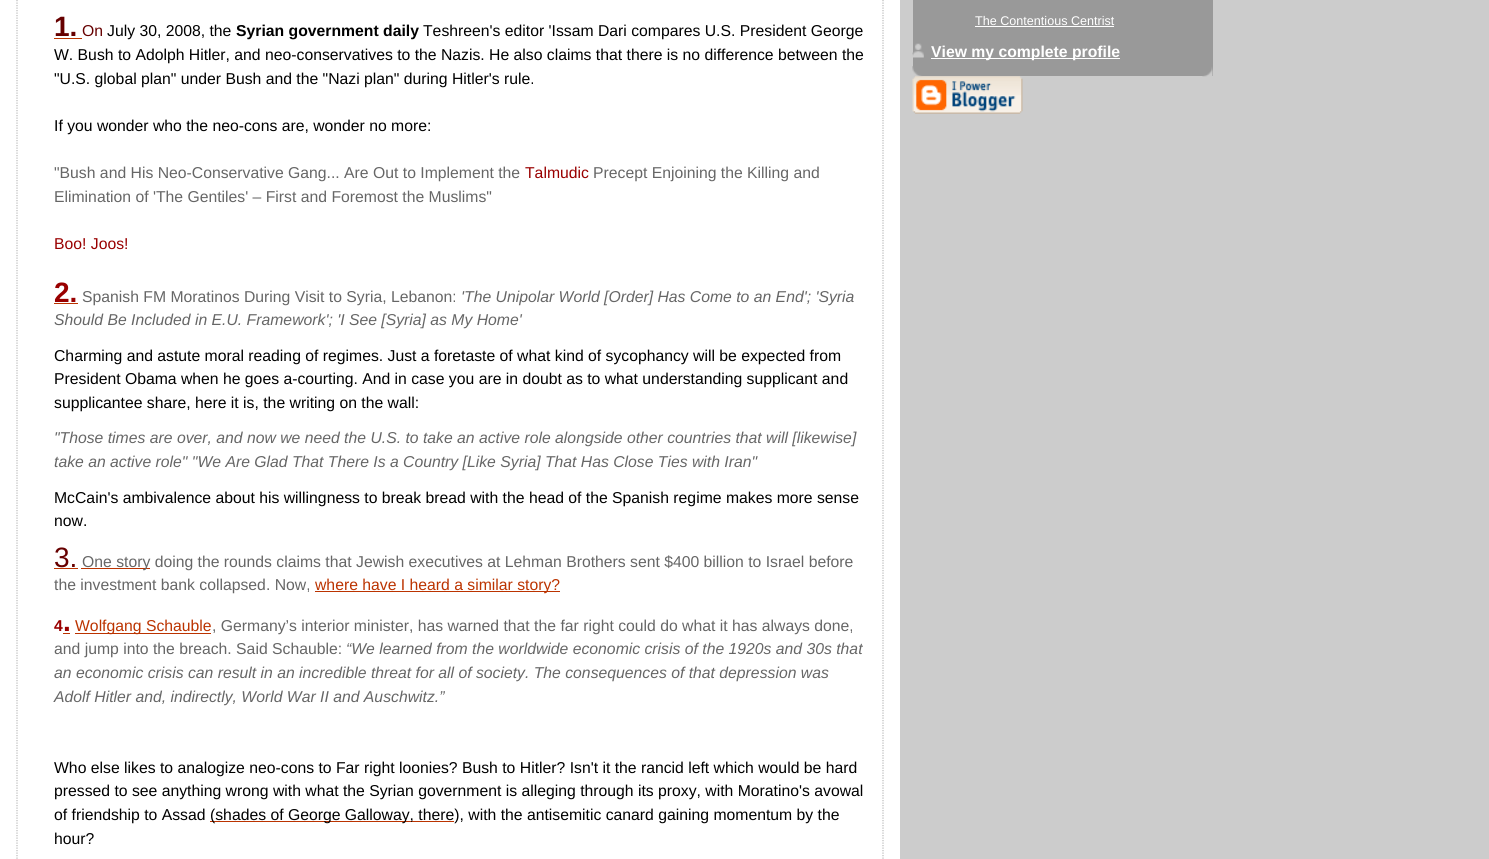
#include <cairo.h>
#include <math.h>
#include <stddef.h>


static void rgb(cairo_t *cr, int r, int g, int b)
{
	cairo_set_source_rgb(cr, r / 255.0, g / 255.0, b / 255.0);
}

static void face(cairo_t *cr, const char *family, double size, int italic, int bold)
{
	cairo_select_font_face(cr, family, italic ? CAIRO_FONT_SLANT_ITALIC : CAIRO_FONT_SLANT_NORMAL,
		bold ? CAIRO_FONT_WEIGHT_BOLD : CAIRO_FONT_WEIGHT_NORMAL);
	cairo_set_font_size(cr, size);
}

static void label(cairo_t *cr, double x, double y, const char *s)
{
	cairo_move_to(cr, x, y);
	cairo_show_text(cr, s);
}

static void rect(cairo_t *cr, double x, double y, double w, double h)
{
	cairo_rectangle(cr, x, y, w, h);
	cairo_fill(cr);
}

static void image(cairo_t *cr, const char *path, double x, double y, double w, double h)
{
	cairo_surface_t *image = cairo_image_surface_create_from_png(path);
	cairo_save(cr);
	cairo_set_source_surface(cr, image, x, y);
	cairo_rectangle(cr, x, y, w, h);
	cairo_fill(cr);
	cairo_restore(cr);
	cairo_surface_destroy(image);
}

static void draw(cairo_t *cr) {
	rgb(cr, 204, 204, 204);
	cairo_paint(cr);
	rgb(cr, 255, 255, 255);
	rect(cr, 0, 0, 900, 859);
	cairo_new_path(cr);
	cairo_move_to(cr, 883, -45);
	cairo_line_to(cr, 883, 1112.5);
	rgb(cr, 187, 187, 187);
	cairo_set_line_width(cr, 1.2);
	cairo_set_dash(cr, (double[]){1.25, 1.25}, 2, 0);
	cairo_stroke(cr);
	cairo_new_path(cr);
	cairo_move_to(cr, 17, -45);
	cairo_line_to(cr, 17, 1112.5);
	cairo_stroke(cr);
	face(cr, "Liberation Sans", 28, 0, 1);
	rgb(cr, 102, 0, 0);
	label(cr, 54, 36, "1.");
	face(cr, "Liberation Sans", 15.75, 0, 0);
	label(cr, 82, 36, "On");
	rgb(cr, 187, 51, 0);
	rect(cr, 54, 38, 28, 1);
	rgb(cr, 0, 0, 0);
	label(cr, 107, 36, "July 30, 2008, the");
	face(cr, "Liberation Sans", 15.75, 0, 1);
	label(cr, 236, 36, "Syrian government daily");
	face(cr, "Liberation Sans", 15.75, 0, 0);
	label(cr, 423, 36, "Teshreen's editor 'Issam Dari compares U.S. President George");
	label(cr, 54, 60, "W. Bush to Adolph Hitler, and neo-conservatives to the Nazis. He also claims that there is no difference between the");
	label(cr, 54, 84, "\"U.S. global plan\" under Bush and the \"Nazi plan\" during Hitler's rule.");
	label(cr, 54, 131, "If you wonder who the neo-cons are, wonder no more:");
	rgb(cr, 102, 102, 102);
	label(cr, 54, 178, "\"Bush and His Neo-Conservative Gang... Are Out to Implement the");
	rgb(cr, 153, 0, 0);
	label(cr, 525, 178, "Talmudic");
	rgb(cr, 102, 102, 102);
	label(cr, 593, 178, "Precept Enjoining the Killing and");
	label(cr, 54, 202, "Elimination of 'The Gentiles' – First and Foremost the Muslims\"");
	rgb(cr, 153, 0, 0);
	label(cr, 54, 249, "Boo! Joos!");
	face(cr, "Liberation Sans", 28, 0, 1);
	label(cr, 54, 302, "2.");
	rgb(cr, 187, 51, 0);
	rect(cr, 54, 303, 24, 1);
	face(cr, "Liberation Sans", 15.75, 0, 0);
	rgb(cr, 102, 102, 102);
	label(cr, 82, 302, "Spanish FM Moratinos During Visit to Syria, Lebanon:");
	face(cr, "Liberation Sans", 15.75, 1, 0);
	label(cr, 461, 302, "'The Unipolar World [Order] Has Come to an End'; 'Syria");
	label(cr, 54, 325, "Should Be Included in E.U. Framework'; 'I See [Syria] as My Home'");
	face(cr, "Liberation Sans", 15.75, 0, 0);
	rgb(cr, 0, 0, 0);
	label(cr, 54, 361, "Charming and astute moral reading of regimes. Just a foretaste of what kind of sycophancy will be expected from");
	label(cr, 54, 384, "President Obama when he goes a-courting. And in case you are in doubt as to what understanding supplicant and");
	label(cr, 54, 408, "supplicantee share, here it is, the writing on the wall:");
	face(cr, "Liberation Sans", 15.75, 1, 0);
	rgb(cr, 102, 102, 102);
	label(cr, 54, 443, "\"Those times are over, and now we need the U.S. to take an active role alongside other countries that will [likewise]");
	label(cr, 54, 467, "take an active role\" \"We Are Glad That There Is a Country [Like Syria] That Has Close Ties with Iran\"");
	face(cr, "Liberation Sans", 15.75, 0, 0);
	rgb(cr, 0, 0, 0);
	label(cr, 54, 503, "McCain's ambivalence about his willingness to break bread with the head of the Spanish regime makes more sense");
	label(cr, 54, 526, "now.");
	face(cr, "Liberation Sans", 28, 0, 0);
	rgb(cr, 102, 0, 0);
	label(cr, 54, 567, "3.");
	rgb(cr, 187, 51, 0);
	rect(cr, 54, 568, 24, 1);
	rect(cr, 81, 568, 69, 1);
	face(cr, "Liberation Sans", 15.75, 0, 0);
	rgb(cr, 102, 102, 102);
	label(cr, 82, 567, "One story doing the rounds claims that Jewish executives at Lehman Brothers sent $400 billion to Israel before");
	label(cr, 54, 590, "the investment bank collapsed. Now,");
	rgb(cr, 187, 51, 0);
	rect(cr, 315, 591, 245, 1);
	label(cr, 315, 590, "where have I heard a similar story?");
	face(cr, "Liberation Sans", 15.75, 0, 1);
	rgb(cr, 153, 0, 0);
	label(cr, 54, 631, "4");
	face(cr, "Liberation Sans", 28, 0, 1);
	label(cr, 63, 631, ".");
	rgb(cr, 187, 51, 0);
	rect(cr, 63, 633, 7, 1);
	rect(cr, 75, 633, 136, 1);
	face(cr, "Liberation Sans", 15.75, 0, 0);
	label(cr, 75, 631, "Wolfgang Schauble");
	rgb(cr, 102, 102, 102);
	label(cr, 212, 631, ", Germany’s interior minister, has warned that the far right could do what it has always done,");
	label(cr, 54, 654, "and jump into the breach. Said Schauble:");
	face(cr, "Liberation Sans", 15.75, 1, 0);
	label(cr, 346, 654, "“We learned from the worldwide economic crisis of the 1920s and 30s that");
	label(cr, 54, 678, "an economic crisis can result in an incredible threat for all of society. The consequences of that depression was");
	label(cr, 54, 702, "Adolf Hitler and, indirectly, World War II and Auschwitz.”");
	face(cr, "Liberation Sans", 15.75, 0, 0);
	rgb(cr, 0, 0, 0);
	label(cr, 54, 773, "Who else likes to analogize neo-cons to Far right loonies? Bush to Hitler? Isn't it the rancid left which would be hard");
	label(cr, 54, 796, "pressed to see anything wrong with what the Syrian government is alleging through its proxy, with Moratino's avowal");
	label(cr, 54, 820, "of friendship to Assad");
	rgb(cr, 187, 51, 0);
	rect(cr, 210, 821, 244, 1);
	rgb(cr, 0, 0, 0);
	label(cr, 210, 820, "(shades of George Galloway, there), with the antisemitic canard gaining momentum by the");
	label(cr, 54, 844, "hour?");
	rgb(cr, 153, 153, 153);
	rect(cr, 913, 0, 300, 76);
	image(cr, "image0.png", 912, 66, 301, 11);
	face(cr, "Liberation Sans", 12.6, 0, 0);
	rgb(cr, 255, 255, 255);
	label(cr, 975, 25, "The Contentious Centrist");
	rect(cr, 975, 26, 139, 1);
	image(cr, "image1.png", 912, 43, 12, 15);
	rect(cr, 931, 58, 189, 1);
	face(cr, "Liberation Sans", 15.75, 0, 1);
	label(cr, 931, 57, "View my complete profile");
	image(cr, "image2.png", 912, 76, 111, 38);
}

int main(void) {
	cairo_surface_t *surface = cairo_image_surface_create(CAIRO_FORMAT_RGB24, 1489, 859);
	cairo_t *cr = cairo_create(surface);
	cairo_font_options_t *options = cairo_font_options_create();
	cairo_font_options_set_hint_metrics(options, CAIRO_HINT_METRICS_OFF);
	cairo_font_options_set_hint_style(options, CAIRO_HINT_STYLE_NONE);
	cairo_set_font_options(cr, options);
	cairo_set_miter_limit(cr, 4);
	draw(cr);
	cairo_surface_write_to_png(surface, "render.png");
	cairo_font_options_destroy(options);
	cairo_destroy(cr);
	cairo_surface_destroy(surface);
	return 0;
}
